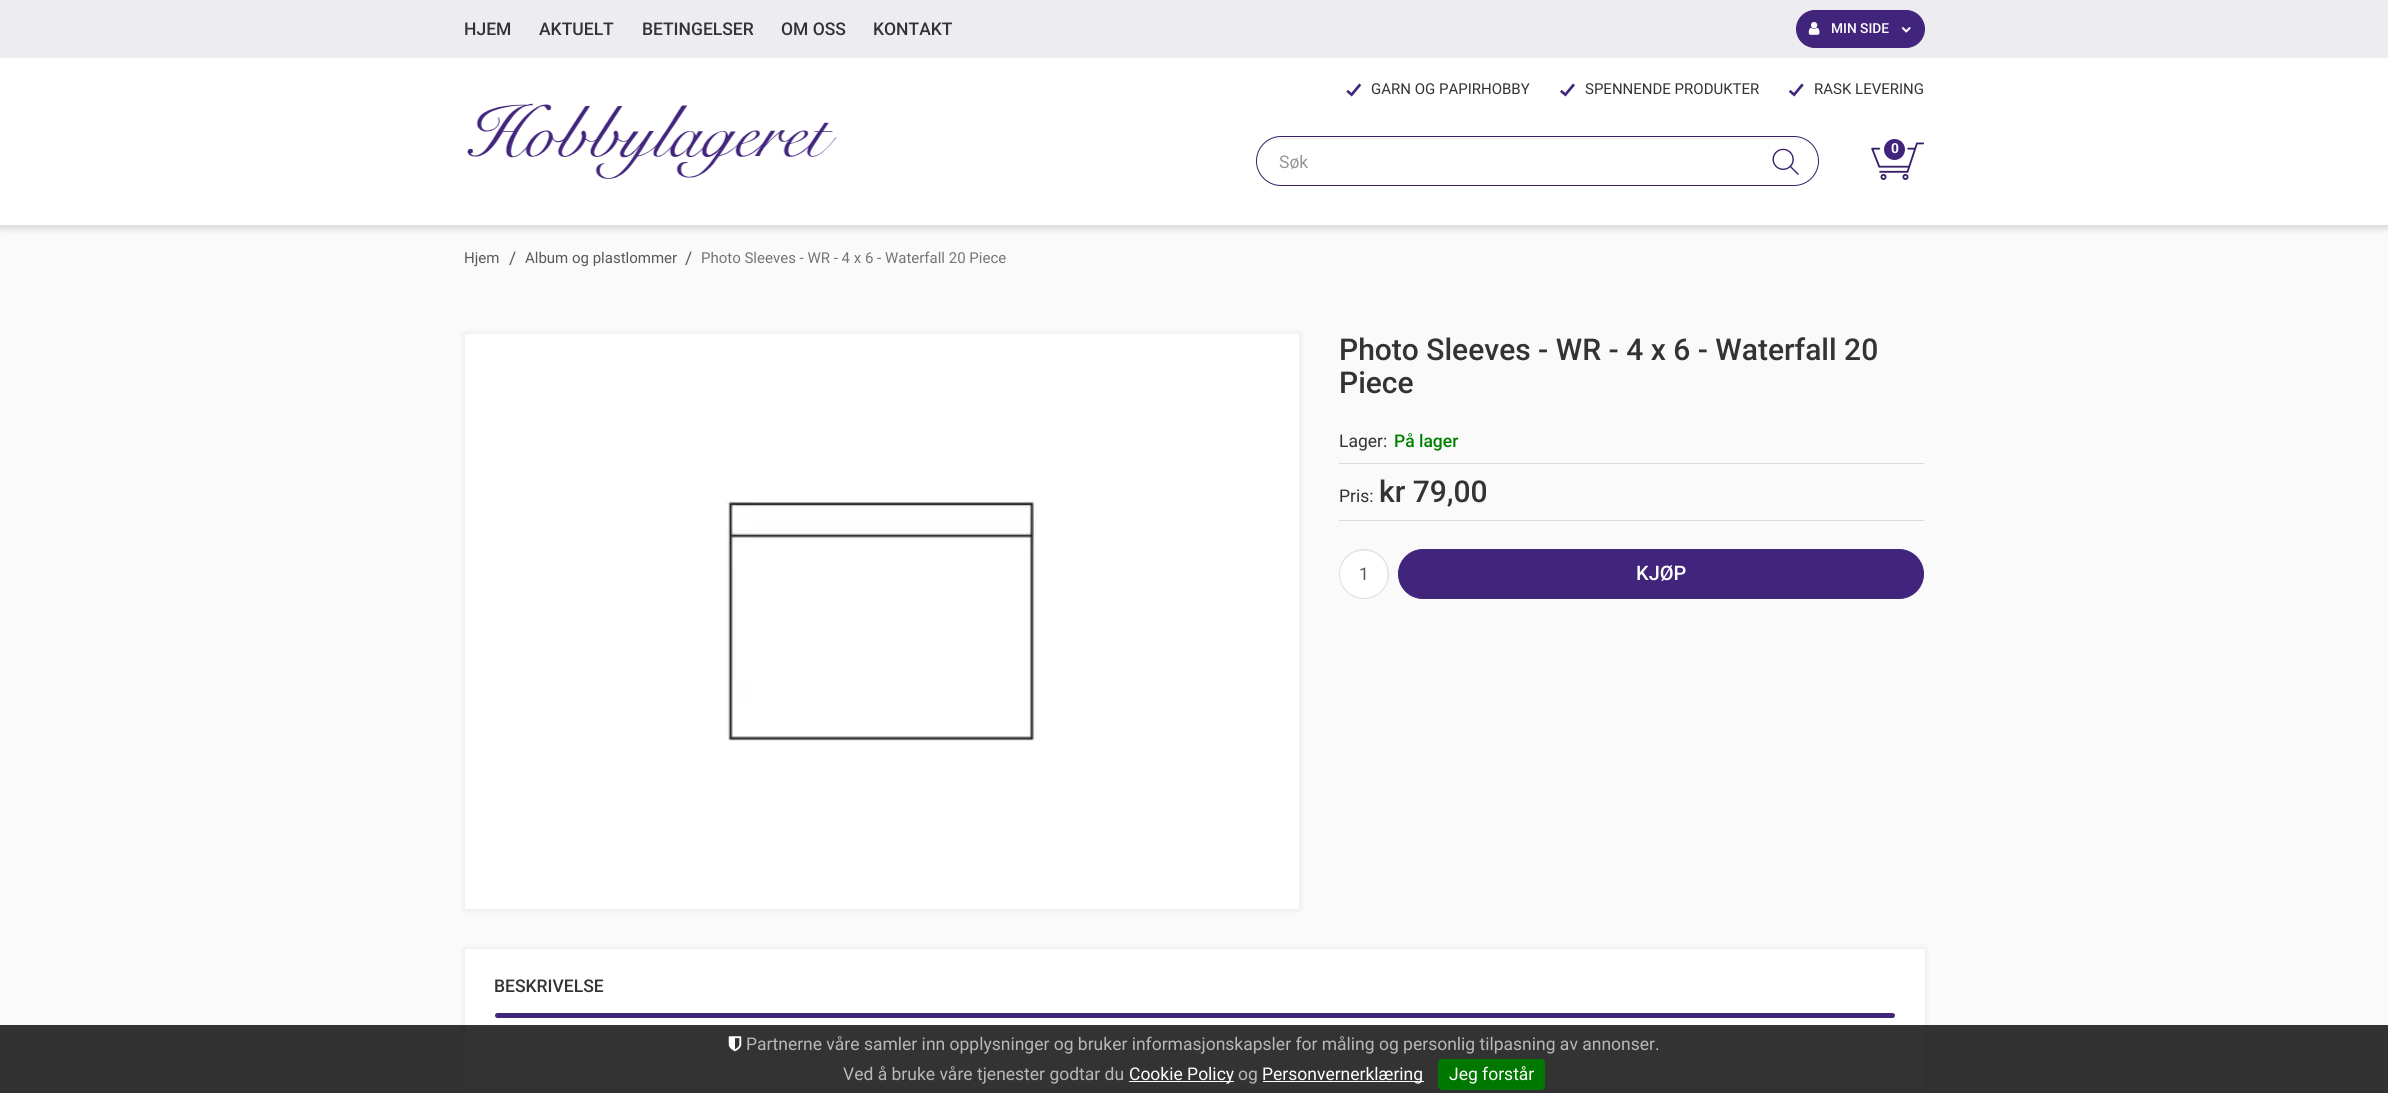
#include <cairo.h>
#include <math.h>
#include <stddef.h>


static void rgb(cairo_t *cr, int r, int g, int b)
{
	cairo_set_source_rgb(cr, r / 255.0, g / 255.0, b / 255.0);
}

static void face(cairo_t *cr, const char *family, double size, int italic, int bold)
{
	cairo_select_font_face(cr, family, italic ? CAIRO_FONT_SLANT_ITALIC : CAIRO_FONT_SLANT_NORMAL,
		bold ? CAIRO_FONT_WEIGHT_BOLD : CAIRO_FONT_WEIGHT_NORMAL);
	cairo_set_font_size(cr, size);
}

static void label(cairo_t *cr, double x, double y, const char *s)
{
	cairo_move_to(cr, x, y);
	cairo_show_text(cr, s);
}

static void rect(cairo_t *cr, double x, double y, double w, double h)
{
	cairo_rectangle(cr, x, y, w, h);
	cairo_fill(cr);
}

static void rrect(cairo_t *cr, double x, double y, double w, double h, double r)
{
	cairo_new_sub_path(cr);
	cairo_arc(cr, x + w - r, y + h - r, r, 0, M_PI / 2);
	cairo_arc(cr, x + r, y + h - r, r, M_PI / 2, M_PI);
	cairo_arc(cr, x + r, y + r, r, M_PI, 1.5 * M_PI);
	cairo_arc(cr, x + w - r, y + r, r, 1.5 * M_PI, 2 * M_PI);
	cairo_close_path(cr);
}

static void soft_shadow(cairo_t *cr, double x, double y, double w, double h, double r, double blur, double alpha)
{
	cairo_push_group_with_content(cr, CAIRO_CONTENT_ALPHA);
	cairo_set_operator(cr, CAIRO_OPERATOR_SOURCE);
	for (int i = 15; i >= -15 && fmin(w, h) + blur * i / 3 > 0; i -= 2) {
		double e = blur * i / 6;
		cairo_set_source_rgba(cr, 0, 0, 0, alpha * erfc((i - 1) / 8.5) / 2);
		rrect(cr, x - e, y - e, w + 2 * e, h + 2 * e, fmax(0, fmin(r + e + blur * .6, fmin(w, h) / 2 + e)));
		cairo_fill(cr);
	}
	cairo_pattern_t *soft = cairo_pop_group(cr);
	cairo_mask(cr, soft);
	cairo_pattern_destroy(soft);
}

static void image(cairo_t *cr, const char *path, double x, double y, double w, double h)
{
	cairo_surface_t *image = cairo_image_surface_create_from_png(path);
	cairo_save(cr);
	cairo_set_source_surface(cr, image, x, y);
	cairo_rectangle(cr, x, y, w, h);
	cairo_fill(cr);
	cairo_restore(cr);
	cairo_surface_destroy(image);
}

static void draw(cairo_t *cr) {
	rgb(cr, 250, 250, 250);
	cairo_paint(cr);
	rgb(cr, 255, 255, 255);
	rect(cr, 0, 58, 2388, 167);
	cairo_save(cr);
	cairo_rectangle(cr, 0, 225, 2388, 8);
	cairo_clip(cr);
	rgb(cr, 0, 0, 0);
	soft_shadow(cr, 0, 3, 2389, 225, 0, 4, 0.16);
	cairo_restore(cr);
	rgb(cr, 237, 236, 240);
	rect(cr, 0, 0, 2388, 58);
	face(cr, "Roboto Medium", 17.5, 0, 0);
	rgb(cr, 51, 51, 51);
	label(cr, 464, 35, "HJEM");
	label(cr, 539, 35, "AKTUELT");
	label(cr, 642, 35, "BETINGELSER");
	label(cr, 781, 35, "OM OSS");
	label(cr, 873, 35, "KONTAKT");
	rgb(cr, 65, 36, 123);
	rrect(cr, 1796.5, 10.5, 128, 37, 18.5);
	cairo_fill_preserve(cr);
	cairo_set_line_width(cr, 1);
	cairo_stroke(cr);
	image(cr, "image0.png", 1808, 22, 12, 13);
	face(cr, "Roboto Medium", 13.75, 0, 0);
	rgb(cr, 255, 255, 255);
	label(cr, 1831, 33, "MIN SIDE");
	image(cr, "image1.png", 1901, 27, 10, 6);
	image(cr, "image2.png", 467, 103, 370, 76);
	image(cr, "image3.png", 1346, 83, 16, 14);
	face(cr, "Roboto", 15, 0, 0);
	rgb(cr, 51, 51, 51);
	label(cr, 1371, 94, "GARN OG PAPIRHOBBY");
	image(cr, "image4.png", 1560, 83, 15, 14);
	label(cr, 1585, 94, "SPENNENDE PRODUKTER");
	image(cr, "image5.png", 1788, 83, 16, 14);
	label(cr, 1814, 94, "RASK LEVERING");
	image(cr, "image6.png", 1871, 142, 53, 38);
	rgb(cr, 65, 36, 123);
	cairo_arc(cr, 1894.5, 149.5, 10.5, 0, 2 * M_PI);
	cairo_fill(cr);
	face(cr, "Roboto", 13.75, 0, 1);
	rgb(cr, 255, 255, 255);
	label(cr, 1891, 153, "0");
	rgb(cr, 236, 236, 236);
	cairo_new_path(cr);
	cairo_move_to(cr, 1281, 139);
	cairo_line_to(cr, 1794, 139);
	cairo_curve_to(cr, 1807, 139, 1818, 149, 1818, 162);
	cairo_curve_to(cr, 1818, 149, 1807, 138, 1794, 138);
	cairo_line_to(cr, 1282, 138);
	cairo_curve_to(cr, 1269, 138, 1258, 149, 1258, 162);
	cairo_curve_to(cr, 1258, 149, 1268, 139, 1281, 139);
	cairo_close_path(cr);
	cairo_fill(cr);
	rrect(cr, 1256.5, 136.5, 562, 49, 24.5);
	rgb(cr, 55, 30, 103);
	cairo_stroke(cr);
	face(cr, "Roboto", 17.5, 0, 0);
	rgb(cr, 150, 150, 150);
	label(cr, 1279, 168, "Søk");
	image(cr, "image7.png", 1772, 148, 27, 27);
	face(cr, "Roboto", 15, 0, 0);
	rgb(cr, 89, 89, 89);
	label(cr, 464, 263, "Hjem");
	face(cr, "Roboto", 17.5, 0, 0);
	label(cr, 509, 264, "/");
	face(cr, "Roboto", 15, 0, 0);
	label(cr, 525, 263, "Album og plastlommer");
	face(cr, "Roboto", 17.5, 0, 0);
	label(cr, 685, 264, "/");
	face(cr, "Roboto", 15, 0, 0);
	rgb(cr, 117, 117, 117);
	label(cr, 701, 263, "Photo Sleeves - WR - 4 x 6 - Waterfall 20 Piece");
	rgb(cr, 0, 0, 0);
	soft_shadow(cr, 465, 334, 834, 575, 0, 3, 0.1);
	rgb(cr, 255, 255, 255);
	rect(cr, 465, 334, 834, 575);
	image(cr, "image8.png", 726, 500, 310, 241);
	face(cr, "Roboto Medium", 30, 0, 0);
	rgb(cr, 51, 51, 51);
	label(cr, 1339, 360, "Photo Sleeves - WR - 4 x 6 - Waterfall 20");
	label(cr, 1339, 393, "Piece");
	rgb(cr, 219, 219, 219);
	rect(cr, 1339, 463, 585, 1);
	face(cr, "Roboto", 17.5, 0, 0);
	rgb(cr, 51, 51, 51);
	label(cr, 1339, 447, "Lager:");
	face(cr, "Roboto Medium", 17.5, 0, 0);
	rgb(cr, 0, 128, 0);
	label(cr, 1394, 447, "På lager");
	rgb(cr, 219, 219, 219);
	rect(cr, 1339, 520, 585, 1);
	face(cr, "Roboto", 17.5, 0, 0);
	rgb(cr, 51, 51, 51);
	label(cr, 1339, 502, "Pris:");
	face(cr, "Roboto Medium", 30, 0, 0);
	label(cr, 1379, 502, "kr 79,00");
	rgb(cr, 255, 255, 255);
	cairo_new_path(cr);
	cairo_arc(cr, 1364, 574, 25, 0, 2 * M_PI);
	cairo_fill(cr);
	rgb(cr, 236, 236, 236);
	cairo_new_path(cr);
	cairo_move_to(cr, 1364, 551);
	cairo_curve_to(cr, 1384, 551, 1391, 571, 1385, 585);
	cairo_curve_to(cr, 1397, 561, 1367, 538, 1347, 557);
	cairo_curve_to(cr, 1342, 562, 1340, 568, 1340, 574);
	cairo_curve_to(cr, 1340, 563, 1348, 551, 1364, 551);
	cairo_close_path(cr);
	cairo_fill(cr);
	cairo_arc(cr, 1364, 574, 24.5, 0, 2 * M_PI);
	rgb(cr, 220, 220, 220);
	cairo_stroke(cr);
	face(cr, "Roboto", 17.5, 0, 0);
	rgb(cr, 89, 89, 89);
	label(cr, 1359, 580, "1");
	rgb(cr, 65, 36, 123);
	rrect(cr, 1398.5, 549.5, 525, 49, 24.5);
	cairo_fill_preserve(cr);
	cairo_stroke(cr);
	face(cr, "Roboto Medium", 20, 0, 0);
	rgb(cr, 255, 255, 255);
	label(cr, 1636, 580, "KJØP");
	rgb(cr, 0, 0, 0);
	soft_shadow(cr, 465, 949, 1460, 140, 0, 3, 0.1);
	rgb(cr, 255, 255, 255);
	rect(cr, 465, 949, 1460, 140);
	face(cr, "Roboto Medium", 17.5, 0, 0);
	rgb(cr, 51, 51, 51);
	label(cr, 494, 992, "BESKRIVELSE");
	rgb(cr, 65, 36, 123);
	rrect(cr, 495, 1013, 1400, 5, 2.5);
	cairo_fill(cr);
	cairo_set_source_rgba(cr, 0, 0, 0, 0.8);
	rect(cr, 0, 1025, 2388, 68);
	image(cr, "image9.png", 728, 1036, 14, 16);
	face(cr, "Roboto", 17.5, 0, 0);
	rgb(cr, 184, 184, 184);
	label(cr, 746, 1050, "Partnerne våre samler inn opplysninger og bruker informasjonskapsler for måling og personlig tilpasning av annonser.");
	label(cr, 843, 1080, "Ved å bruke våre tjenester godtar du");
	rgb(cr, 255, 255, 255);
	rect(cr, 1129, 1081, 105, 1);
	label(cr, 1129, 1080, "Cookie Policy");
	rgb(cr, 184, 184, 184);
	label(cr, 1238, 1080, "og");
	rgb(cr, 255, 255, 255);
	rect(cr, 1263, 1081, 161, 1);
	label(cr, 1262, 1080, "Personvernerklæring");
	rgb(cr, 0, 119, 0);
	rrect(cr, 1438, 1059, 107, 31, 4);
	cairo_fill(cr);
	rgb(cr, 255, 255, 255);
	label(cr, 1449, 1080, "Jeg forstår");
}

int main(void) {
	cairo_surface_t *surface = cairo_image_surface_create(CAIRO_FORMAT_RGB24, 2388, 1093);
	cairo_t *cr = cairo_create(surface);
	cairo_font_options_t *options = cairo_font_options_create();
	cairo_font_options_set_hint_metrics(options, CAIRO_HINT_METRICS_OFF);
	cairo_font_options_set_hint_style(options, CAIRO_HINT_STYLE_NONE);
	cairo_set_font_options(cr, options);
	cairo_set_miter_limit(cr, 4);
	draw(cr);
	cairo_surface_write_to_png(surface, "render.png");
	cairo_font_options_destroy(options);
	cairo_destroy(cr);
	cairo_surface_destroy(surface);
	return 0;
}
